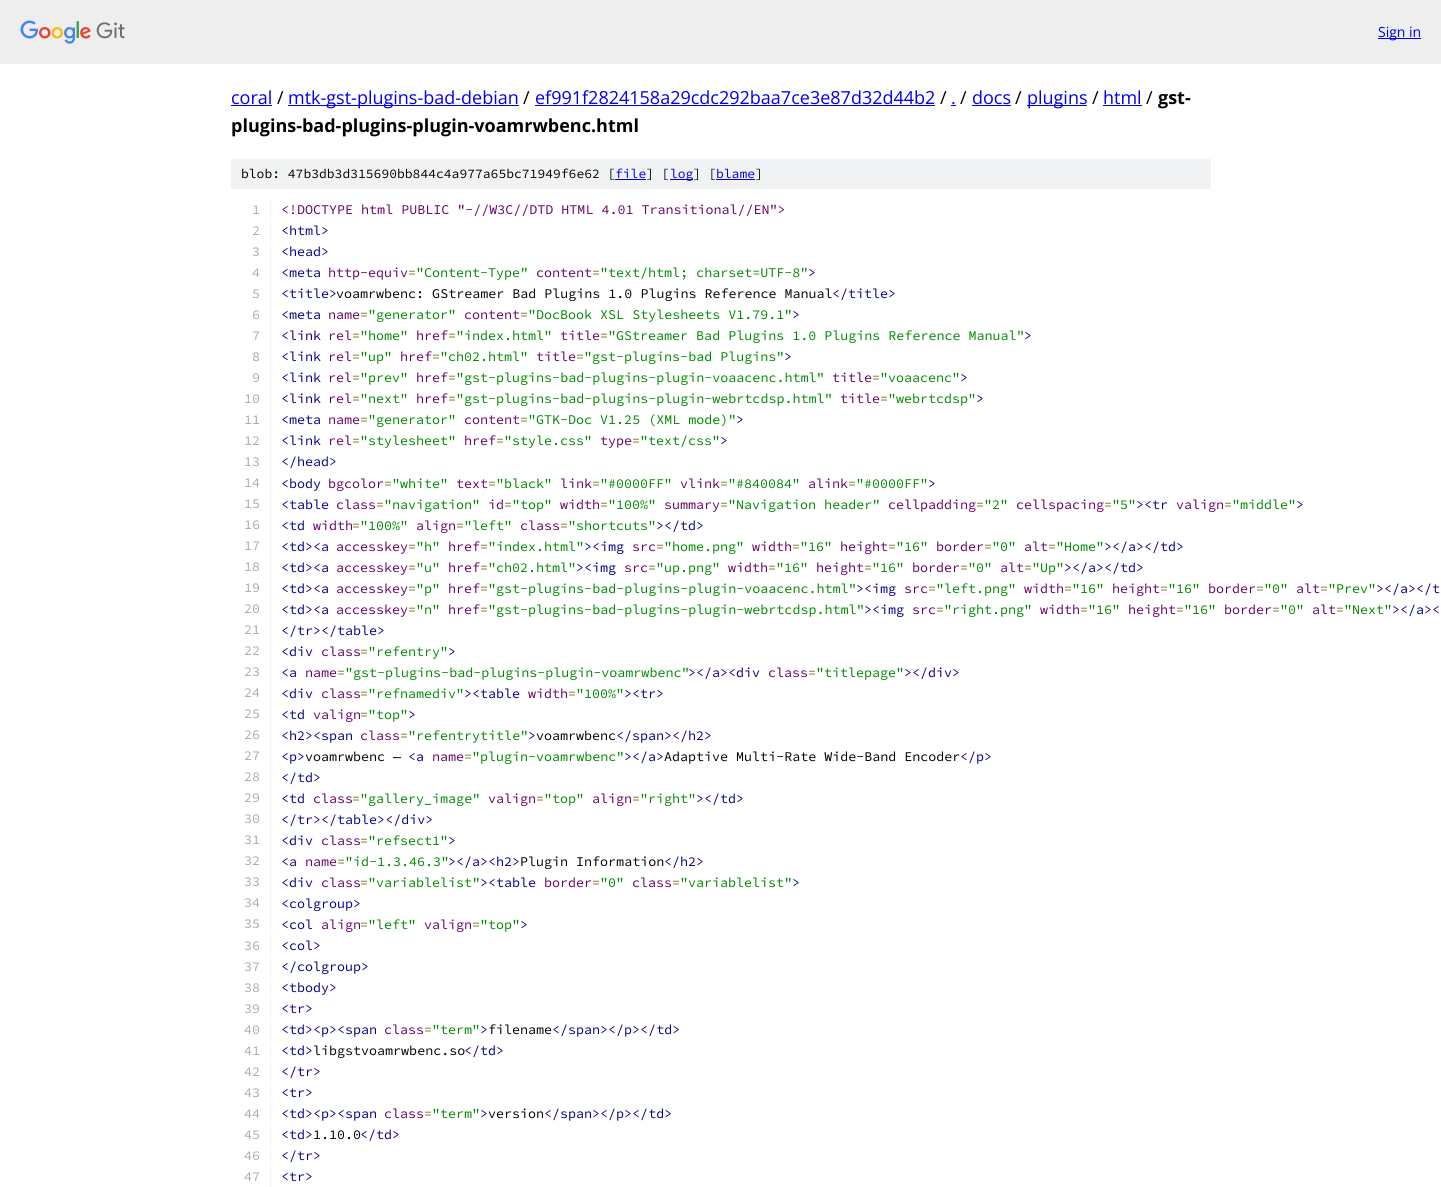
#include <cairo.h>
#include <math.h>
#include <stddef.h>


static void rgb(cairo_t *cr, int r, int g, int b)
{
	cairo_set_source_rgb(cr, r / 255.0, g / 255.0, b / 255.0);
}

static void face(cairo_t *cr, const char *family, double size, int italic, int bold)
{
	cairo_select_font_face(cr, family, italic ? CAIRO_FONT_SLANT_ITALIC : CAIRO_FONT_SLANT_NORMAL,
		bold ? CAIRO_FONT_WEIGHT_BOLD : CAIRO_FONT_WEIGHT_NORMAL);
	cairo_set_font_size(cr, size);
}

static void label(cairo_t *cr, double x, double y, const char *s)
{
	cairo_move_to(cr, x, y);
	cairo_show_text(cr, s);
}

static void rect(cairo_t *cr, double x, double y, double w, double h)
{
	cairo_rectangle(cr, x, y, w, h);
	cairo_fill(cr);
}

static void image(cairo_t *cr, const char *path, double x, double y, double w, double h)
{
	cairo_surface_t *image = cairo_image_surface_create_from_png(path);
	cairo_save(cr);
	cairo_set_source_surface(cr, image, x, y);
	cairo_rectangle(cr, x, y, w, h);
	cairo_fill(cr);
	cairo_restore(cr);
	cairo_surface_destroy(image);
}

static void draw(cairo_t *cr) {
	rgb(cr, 255, 255, 255);
	cairo_paint(cr);
	rgb(cr, 238, 238, 238);
	rect(cr, 0, 0, 1441, 64);
	image(cr, "image0.png", 20, 20, 105, 24);
	rgb(cr, 0, 0, 238);
	rect(cr, 1378, 38, 43, 1);
	face(cr, "Open Sans", 14, 0, 0);
	label(cr, 1378, 37, "Sign in");
	face(cr, "Open Sans", 18, 0, 0);
	label(cr, 231, 104, "coral");
	rect(cr, 231, 105, 41, 1);
	rgb(cr, 0, 0, 0);
	label(cr, 277, 104, "/");
	rgb(cr, 0, 0, 238);
	rect(cr, 288, 105, 231, 1);
	label(cr, 288, 104, "mtk-gst-plugins-bad-debian");
	rgb(cr, 0, 0, 0);
	label(cr, 523, 104, "/");
	rgb(cr, 0, 0, 238);
	label(cr, 535, 104, "ef991f2824158a29cdc292baa7ce3e87d32d44b2");
	rect(cr, 535, 105, 400, 1);
	rgb(cr, 0, 0, 0);
	label(cr, 940, 104, "/");
	rgb(cr, 0, 0, 238);
	label(cr, 951, 104, ".");
	rect(cr, 951, 105, 5, 1);
	rgb(cr, 0, 0, 0);
	label(cr, 960, 104, "/");
	rgb(cr, 0, 0, 238);
	label(cr, 972, 104, "docs");
	rect(cr, 972, 105, 39, 1);
	rgb(cr, 0, 0, 0);
	label(cr, 1015, 104, "/");
	rgb(cr, 0, 0, 238);
	rect(cr, 1027, 105, 60, 1);
	label(cr, 1027, 104, "plugins");
	rgb(cr, 0, 0, 0);
	label(cr, 1092, 104, "/");
	rgb(cr, 0, 0, 238);
	label(cr, 1103, 104, "html");
	rect(cr, 1103, 105, 39, 1);
	rgb(cr, 0, 0, 0);
	label(cr, 1146, 104, "/");
	face(cr, "Open Sans", 18, 0, 1);
	label(cr, 1158, 104, "gst-");
	label(cr, 231, 132, "plugins-bad-plugins-plugin-voamrwbenc.html");
	rgb(cr, 241, 242, 243);
	rect(cr, 231, 159, 980, 30);
	face(cr, "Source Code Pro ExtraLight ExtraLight", 13, 0, 0);
	rgb(cr, 0, 0, 0);
	label(cr, 241, 178, "blob: 47b3db3d315690bb844c4a977a65bc71949f6e62 [");
	rgb(cr, 0, 0, 238);
	label(cr, 615, 178, "file");
	rect(cr, 615, 179, 31, 1);
	rgb(cr, 0, 0, 0);
	label(cr, 646, 178, "] [");
	rgb(cr, 0, 0, 238);
	rect(cr, 670, 179, 23, 1);
	label(cr, 670, 178, "log");
	rgb(cr, 0, 0, 0);
	label(cr, 693, 178, "] [");
	rgb(cr, 0, 0, 238);
	label(cr, 716, 178, "blame");
	rect(cr, 716, 179, 39, 1);
	rgb(cr, 0, 0, 0);
	label(cr, 755, 178, "]");
	rgb(cr, 241, 242, 243);
	rect(cr, 270, 200, 1, 20);
	face(cr, "Source Code Pro ExtraLight ExtraLight", 13.35, 0, 0);
	rgb(cr, 170, 170, 170);
	label(cr, 252, 214, "1");
	rgb(cr, 102, 0, 102);
	label(cr, 281, 214, "<!DOCTYPE html PUBLIC \"-//W3C//DTD HTML 4.01 Transitional//EN\">");
	rgb(cr, 241, 242, 243);
	rect(cr, 270, 221, 1, 20);
	rgb(cr, 170, 170, 170);
	label(cr, 252, 235, "2");
	rgb(cr, 0, 0, 136);
	label(cr, 281, 235, "<html>");
	rgb(cr, 241, 242, 243);
	rect(cr, 270, 242, 1, 336);
	rgb(cr, 170, 170, 170);
	label(cr, 252, 256, "3");
	rgb(cr, 0, 0, 136);
	label(cr, 281, 256, "<head>");
	rgb(cr, 170, 170, 170);
	label(cr, 252, 277, "4");
	rgb(cr, 0, 0, 136);
	label(cr, 281, 277, "<meta");
	rgb(cr, 102, 0, 102);
	label(cr, 328, 277, "http-equiv");
	rgb(cr, 102, 102, 0);
	label(cr, 408, 277, "=");
	rgb(cr, 0, 136, 0);
	label(cr, 416, 277, "\"Content-Type\"");
	rgb(cr, 102, 0, 102);
	label(cr, 536, 277, "content");
	rgb(cr, 102, 102, 0);
	label(cr, 592, 277, "=");
	rgb(cr, 0, 136, 0);
	label(cr, 600, 277, "\"text/html; charset=UTF-8\"");
	rgb(cr, 0, 0, 136);
	label(cr, 808, 277, ">");
	rgb(cr, 170, 170, 170);
	label(cr, 252, 298, "5");
	rgb(cr, 0, 0, 136);
	label(cr, 281, 298, "<title>");
	rgb(cr, 0, 0, 0);
	label(cr, 336, 298, "voamrwbenc: GStreamer Bad Plugins 1.0 Plugins Reference Manual");
	rgb(cr, 0, 0, 136);
	label(cr, 832, 298, "</title>");
	rgb(cr, 170, 170, 170);
	label(cr, 252, 319, "6");
	rgb(cr, 0, 0, 136);
	label(cr, 281, 319, "<meta");
	rgb(cr, 102, 0, 102);
	label(cr, 328, 319, "name");
	rgb(cr, 102, 102, 0);
	label(cr, 360, 319, "=");
	rgb(cr, 0, 136, 0);
	label(cr, 368, 319, "\"generator\"");
	rgb(cr, 102, 0, 102);
	label(cr, 464, 319, "content");
	rgb(cr, 102, 102, 0);
	label(cr, 520, 319, "=");
	rgb(cr, 0, 136, 0);
	label(cr, 528, 319, "\"DocBook XSL Stylesheets V1.79.1\"");
	rgb(cr, 0, 0, 136);
	label(cr, 792, 319, ">");
	rgb(cr, 170, 170, 170);
	label(cr, 252, 340, "7");
	rgb(cr, 0, 0, 136);
	label(cr, 281, 340, "<link");
	rgb(cr, 102, 0, 102);
	label(cr, 328, 340, "rel");
	rgb(cr, 102, 102, 0);
	label(cr, 352, 340, "=");
	rgb(cr, 0, 136, 0);
	label(cr, 360, 340, "\"home\"");
	rgb(cr, 102, 0, 102);
	label(cr, 416, 340, "href");
	rgb(cr, 102, 102, 0);
	label(cr, 448, 340, "=");
	rgb(cr, 0, 136, 0);
	label(cr, 456, 340, "\"index.html\"");
	rgb(cr, 102, 0, 102);
	label(cr, 560, 340, "title");
	rgb(cr, 102, 102, 0);
	label(cr, 600, 340, "=");
	rgb(cr, 0, 136, 0);
	label(cr, 608, 340, "\"GStreamer Bad Plugins 1.0 Plugins Reference Manual\"");
	rgb(cr, 0, 0, 136);
	label(cr, 1024, 340, ">");
	rgb(cr, 170, 170, 170);
	label(cr, 252, 361, "8");
	rgb(cr, 0, 0, 136);
	label(cr, 281, 361, "<link");
	rgb(cr, 102, 0, 102);
	label(cr, 328, 361, "rel");
	rgb(cr, 102, 102, 0);
	label(cr, 352, 361, "=");
	rgb(cr, 0, 136, 0);
	label(cr, 360, 361, "\"up\"");
	rgb(cr, 102, 0, 102);
	label(cr, 400, 361, "href");
	rgb(cr, 102, 102, 0);
	label(cr, 432, 361, "=");
	rgb(cr, 0, 136, 0);
	label(cr, 440, 361, "\"ch02.html\"");
	rgb(cr, 102, 0, 102);
	label(cr, 536, 361, "title");
	rgb(cr, 102, 102, 0);
	label(cr, 576, 361, "=");
	rgb(cr, 0, 136, 0);
	label(cr, 584, 361, "\"gst-plugins-bad Plugins\"");
	rgb(cr, 0, 0, 136);
	label(cr, 784, 361, ">");
	rgb(cr, 170, 170, 170);
	label(cr, 252, 382, "9");
	rgb(cr, 0, 0, 136);
	label(cr, 281, 382, "<link");
	rgb(cr, 102, 0, 102);
	label(cr, 328, 382, "rel");
	rgb(cr, 102, 102, 0);
	label(cr, 352, 382, "=");
	rgb(cr, 0, 136, 0);
	label(cr, 360, 382, "\"prev\"");
	rgb(cr, 102, 0, 102);
	label(cr, 416, 382, "href");
	rgb(cr, 102, 102, 0);
	label(cr, 448, 382, "=");
	rgb(cr, 0, 136, 0);
	label(cr, 456, 382, "\"gst-plugins-bad-plugins-plugin-voaacenc.html\"");
	rgb(cr, 102, 0, 102);
	label(cr, 832, 382, "title");
	rgb(cr, 102, 102, 0);
	label(cr, 872, 382, "=");
	rgb(cr, 0, 136, 0);
	label(cr, 880, 382, "\"voaacenc\"");
	rgb(cr, 0, 0, 136);
	label(cr, 960, 382, ">");
	rgb(cr, 170, 170, 170);
	label(cr, 244, 403, "10");
	rgb(cr, 0, 0, 136);
	label(cr, 281, 403, "<link");
	rgb(cr, 102, 0, 102);
	label(cr, 328, 403, "rel");
	rgb(cr, 102, 102, 0);
	label(cr, 352, 403, "=");
	rgb(cr, 0, 136, 0);
	label(cr, 360, 403, "\"next\"");
	rgb(cr, 102, 0, 102);
	label(cr, 416, 403, "href");
	rgb(cr, 102, 102, 0);
	label(cr, 448, 403, "=");
	rgb(cr, 0, 136, 0);
	label(cr, 456, 403, "\"gst-plugins-bad-plugins-plugin-webrtcdsp.html\"");
	rgb(cr, 102, 0, 102);
	label(cr, 840, 403, "title");
	rgb(cr, 102, 102, 0);
	label(cr, 880, 403, "=");
	rgb(cr, 0, 136, 0);
	label(cr, 888, 403, "\"webrtcdsp\"");
	rgb(cr, 0, 0, 136);
	label(cr, 976, 403, ">");
	rgb(cr, 170, 170, 170);
	label(cr, 244, 424, "11");
	rgb(cr, 0, 0, 136);
	label(cr, 281, 424, "<meta");
	rgb(cr, 102, 0, 102);
	label(cr, 328, 424, "name");
	rgb(cr, 102, 102, 0);
	label(cr, 360, 424, "=");
	rgb(cr, 0, 136, 0);
	label(cr, 368, 424, "\"generator\"");
	rgb(cr, 102, 0, 102);
	label(cr, 464, 424, "content");
	rgb(cr, 102, 102, 0);
	label(cr, 520, 424, "=");
	rgb(cr, 0, 136, 0);
	label(cr, 528, 424, "\"GTK-Doc V1.25 (XML mode)\"");
	rgb(cr, 0, 0, 136);
	label(cr, 736, 424, ">");
	rgb(cr, 170, 170, 170);
	label(cr, 244, 445, "12");
	rgb(cr, 0, 0, 136);
	label(cr, 281, 445, "<link");
	rgb(cr, 102, 0, 102);
	label(cr, 328, 445, "rel");
	rgb(cr, 102, 102, 0);
	label(cr, 352, 445, "=");
	rgb(cr, 0, 136, 0);
	label(cr, 360, 445, "\"stylesheet\"");
	rgb(cr, 102, 0, 102);
	label(cr, 464, 445, "href");
	rgb(cr, 102, 102, 0);
	label(cr, 496, 445, "=");
	rgb(cr, 0, 136, 0);
	label(cr, 504, 445, "\"style.css\"");
	rgb(cr, 102, 0, 102);
	label(cr, 600, 445, "type");
	rgb(cr, 102, 102, 0);
	label(cr, 632, 445, "=");
	rgb(cr, 0, 136, 0);
	label(cr, 640, 445, "\"text/css\"");
	rgb(cr, 0, 0, 136);
	label(cr, 720, 445, ">");
	rgb(cr, 170, 170, 170);
	label(cr, 244, 466, "13");
	rgb(cr, 0, 0, 136);
	label(cr, 281, 466, "</head>");
	rgb(cr, 170, 170, 170);
	label(cr, 244, 487, "14");
	rgb(cr, 0, 0, 136);
	label(cr, 281, 488, "<body");
	rgb(cr, 102, 0, 102);
	label(cr, 328, 488, "bgcolor");
	rgb(cr, 102, 102, 0);
	label(cr, 384, 488, "=");
	rgb(cr, 0, 136, 0);
	label(cr, 392, 488, "\"white\"");
	rgb(cr, 102, 0, 102);
	label(cr, 456, 488, "text");
	rgb(cr, 102, 102, 0);
	label(cr, 488, 488, "=");
	rgb(cr, 0, 136, 0);
	label(cr, 496, 488, "\"black\"");
	rgb(cr, 102, 0, 102);
	label(cr, 560, 488, "link");
	rgb(cr, 102, 102, 0);
	label(cr, 592, 488, "=");
	rgb(cr, 0, 136, 0);
	label(cr, 600, 488, "\"#0000FF\"");
	rgb(cr, 102, 0, 102);
	label(cr, 680, 488, "vlink");
	rgb(cr, 102, 102, 0);
	label(cr, 720, 488, "=");
	rgb(cr, 0, 136, 0);
	label(cr, 728, 488, "\"#840084\"");
	rgb(cr, 102, 0, 102);
	label(cr, 808, 488, "alink");
	rgb(cr, 102, 102, 0);
	label(cr, 848, 488, "=");
	rgb(cr, 0, 136, 0);
	label(cr, 856, 488, "\"#0000FF\"");
	rgb(cr, 0, 0, 136);
	label(cr, 928, 488, ">");
	rgb(cr, 170, 170, 170);
	label(cr, 244, 508, "15");
	rgb(cr, 0, 0, 136);
	label(cr, 281, 509, "<table");
	rgb(cr, 102, 0, 102);
	label(cr, 336, 509, "class");
	rgb(cr, 102, 102, 0);
	label(cr, 376, 509, "=");
	rgb(cr, 0, 136, 0);
	label(cr, 384, 509, "\"navigation\"");
	rgb(cr, 102, 0, 102);
	label(cr, 488, 509, "id");
	rgb(cr, 102, 102, 0);
	label(cr, 504, 509, "=");
	rgb(cr, 0, 136, 0);
	label(cr, 512, 509, "\"top\"");
	rgb(cr, 102, 0, 102);
	label(cr, 560, 509, "width");
	rgb(cr, 102, 102, 0);
	label(cr, 600, 509, "=");
	rgb(cr, 0, 136, 0);
	label(cr, 608, 509, "\"100%\"");
	rgb(cr, 102, 0, 102);
	label(cr, 664, 509, "summary");
	rgb(cr, 102, 102, 0);
	label(cr, 720, 509, "=");
	rgb(cr, 0, 136, 0);
	label(cr, 728, 509, "\"Navigation header\"");
	rgb(cr, 102, 0, 102);
	label(cr, 888, 509, "cellpadding");
	rgb(cr, 102, 102, 0);
	label(cr, 976, 509, "=");
	rgb(cr, 0, 136, 0);
	label(cr, 984, 509, "\"2\"");
	rgb(cr, 102, 0, 102);
	label(cr, 1016, 509, "cellspacing");
	rgb(cr, 102, 102, 0);
	label(cr, 1104, 509, "=");
	rgb(cr, 0, 136, 0);
	label(cr, 1112, 509, "\"5\"");
	rgb(cr, 0, 0, 136);
	label(cr, 1136, 509, "><tr");
	rgb(cr, 102, 0, 102);
	label(cr, 1176, 509, "valign");
	rgb(cr, 102, 102, 0);
	label(cr, 1224, 509, "=");
	rgb(cr, 0, 136, 0);
	label(cr, 1232, 509, "\"middle\"");
	rgb(cr, 0, 0, 136);
	label(cr, 1296, 509, ">");
	rgb(cr, 170, 170, 170);
	label(cr, 244, 529, "16");
	rgb(cr, 0, 0, 136);
	label(cr, 281, 530, "<td");
	rgb(cr, 102, 0, 102);
	label(cr, 313, 530, "width");
	rgb(cr, 102, 102, 0);
	label(cr, 352, 530, "=");
	rgb(cr, 0, 136, 0);
	label(cr, 360, 530, "\"100%\"");
	rgb(cr, 102, 0, 102);
	label(cr, 416, 530, "align");
	rgb(cr, 102, 102, 0);
	label(cr, 456, 530, "=");
	rgb(cr, 0, 136, 0);
	label(cr, 464, 530, "\"left\"");
	rgb(cr, 102, 0, 102);
	label(cr, 520, 530, "class");
	rgb(cr, 102, 102, 0);
	label(cr, 560, 530, "=");
	rgb(cr, 0, 136, 0);
	label(cr, 568, 530, "\"shortcuts\"");
	rgb(cr, 0, 0, 136);
	label(cr, 656, 530, "></td>");
	rgb(cr, 170, 170, 170);
	label(cr, 244, 550, "17");
	rgb(cr, 0, 0, 136);
	label(cr, 281, 551, "<td><a");
	rgb(cr, 102, 0, 102);
	label(cr, 336, 551, "accesskey");
	rgb(cr, 102, 102, 0);
	label(cr, 408, 551, "=");
	rgb(cr, 0, 136, 0);
	label(cr, 416, 551, "\"h\"");
	rgb(cr, 102, 0, 102);
	label(cr, 448, 551, "href");
	rgb(cr, 102, 102, 0);
	label(cr, 480, 551, "=");
	rgb(cr, 0, 136, 0);
	label(cr, 488, 551, "\"index.html\"");
	rgb(cr, 0, 0, 136);
	label(cr, 584, 551, "><img");
	rgb(cr, 102, 0, 102);
	label(cr, 632, 551, "src");
	rgb(cr, 102, 102, 0);
	label(cr, 656, 551, "=");
	rgb(cr, 0, 136, 0);
	label(cr, 664, 551, "\"home.png\"");
	rgb(cr, 102, 0, 102);
	label(cr, 752, 551, "width");
	rgb(cr, 102, 102, 0);
	label(cr, 792, 551, "=");
	rgb(cr, 0, 136, 0);
	label(cr, 800, 551, "\"16\"");
	rgb(cr, 102, 0, 102);
	label(cr, 840, 551, "height");
	rgb(cr, 102, 102, 0);
	label(cr, 888, 551, "=");
	rgb(cr, 0, 136, 0);
	label(cr, 896, 551, "\"16\"");
	rgb(cr, 102, 0, 102);
	label(cr, 936, 551, "border");
	rgb(cr, 102, 102, 0);
	label(cr, 984, 551, "=");
	rgb(cr, 0, 136, 0);
	label(cr, 992, 551, "\"0\"");
	rgb(cr, 102, 0, 102);
	label(cr, 1024, 551, "alt");
	rgb(cr, 102, 102, 0);
	label(cr, 1048, 551, "=");
	rgb(cr, 0, 136, 0);
	label(cr, 1056, 551, "\"Home\"");
	rgb(cr, 0, 0, 136);
	label(cr, 1104, 551, "></a></td>");
	rgb(cr, 170, 170, 170);
	label(cr, 244, 571, "18");
	rgb(cr, 0, 0, 136);
	label(cr, 281, 572, "<td><a");
	rgb(cr, 102, 0, 102);
	label(cr, 336, 572, "accesskey");
	rgb(cr, 102, 102, 0);
	label(cr, 408, 572, "=");
	rgb(cr, 0, 136, 0);
	label(cr, 416, 572, "\"u\"");
	rgb(cr, 102, 0, 102);
	label(cr, 448, 572, "href");
	rgb(cr, 102, 102, 0);
	label(cr, 480, 572, "=");
	rgb(cr, 0, 136, 0);
	label(cr, 488, 572, "\"ch02.html\"");
	rgb(cr, 0, 0, 136);
	label(cr, 576, 572, "><img");
	rgb(cr, 102, 0, 102);
	label(cr, 624, 572, "src");
	rgb(cr, 102, 102, 0);
	label(cr, 648, 572, "=");
	rgb(cr, 0, 136, 0);
	label(cr, 656, 572, "\"up.png\"");
	rgb(cr, 102, 0, 102);
	label(cr, 728, 572, "width");
	rgb(cr, 102, 102, 0);
	label(cr, 768, 572, "=");
	rgb(cr, 0, 136, 0);
	label(cr, 776, 572, "\"16\"");
	rgb(cr, 102, 0, 102);
	label(cr, 816, 572, "height");
	rgb(cr, 102, 102, 0);
	label(cr, 864, 572, "=");
	rgb(cr, 0, 136, 0);
	label(cr, 872, 572, "\"16\"");
	rgb(cr, 102, 0, 102);
	label(cr, 912, 572, "border");
	rgb(cr, 102, 102, 0);
	label(cr, 960, 572, "=");
	rgb(cr, 0, 136, 0);
	label(cr, 968, 572, "\"0\"");
	rgb(cr, 102, 0, 102);
	label(cr, 1000, 572, "alt");
	rgb(cr, 102, 102, 0);
	label(cr, 1024, 572, "=");
	rgb(cr, 0, 136, 0);
	label(cr, 1032, 572, "\"Up\"");
	rgb(cr, 0, 0, 136);
	label(cr, 1064, 572, "></a></td>");
	rgb(cr, 241, 242, 243);
	rect(cr, 270, 578, 1, 357);
	rgb(cr, 170, 170, 170);
	label(cr, 244, 592, "19");
	rgb(cr, 0, 0, 136);
	label(cr, 281, 593, "<td><a");
	rgb(cr, 102, 0, 102);
	label(cr, 336, 593, "accesskey");
	rgb(cr, 102, 102, 0);
	label(cr, 408, 593, "=");
	rgb(cr, 0, 136, 0);
	label(cr, 416, 593, "\"p\"");
	rgb(cr, 102, 0, 102);
	label(cr, 448, 593, "href");
	rgb(cr, 102, 102, 0);
	label(cr, 480, 593, "=");
	rgb(cr, 0, 136, 0);
	label(cr, 488, 593, "\"gst-plugins-bad-plugins-plugin-voaacenc.html\"");
	rgb(cr, 0, 0, 136);
	label(cr, 856, 593, "><img");
	rgb(cr, 102, 0, 102);
	label(cr, 904, 593, "src");
	rgb(cr, 102, 102, 0);
	label(cr, 928, 593, "=");
	rgb(cr, 0, 136, 0);
	label(cr, 936, 593, "\"left.png\"");
	rgb(cr, 102, 0, 102);
	label(cr, 1024, 593, "width");
	rgb(cr, 102, 102, 0);
	label(cr, 1064, 593, "=");
	rgb(cr, 0, 136, 0);
	label(cr, 1072, 593, "\"16\"");
	rgb(cr, 102, 0, 102);
	label(cr, 1112, 593, "height");
	rgb(cr, 102, 102, 0);
	label(cr, 1160, 593, "=");
	rgb(cr, 0, 136, 0);
	label(cr, 1168, 593, "\"16\"");
	rgb(cr, 102, 0, 102);
	label(cr, 1208, 593, "border");
	rgb(cr, 102, 102, 0);
	label(cr, 1256, 593, "=");
	rgb(cr, 0, 136, 0);
	label(cr, 1264, 593, "\"0\"");
	rgb(cr, 102, 0, 102);
	label(cr, 1296, 593, "alt");
	rgb(cr, 102, 102, 0);
	label(cr, 1320, 593, "=");
	rgb(cr, 0, 136, 0);
	label(cr, 1328, 593, "\"Prev\"");
	rgb(cr, 0, 0, 136);
	label(cr, 1376, 593, "></a></t");
	rgb(cr, 170, 170, 170);
	label(cr, 244, 613, "20");
	rgb(cr, 0, 0, 136);
	label(cr, 281, 614, "<td><a");
	rgb(cr, 102, 0, 102);
	label(cr, 336, 614, "accesskey");
	rgb(cr, 102, 102, 0);
	label(cr, 408, 614, "=");
	rgb(cr, 0, 136, 0);
	label(cr, 416, 614, "\"n\"");
	rgb(cr, 102, 0, 102);
	label(cr, 448, 614, "href");
	rgb(cr, 102, 102, 0);
	label(cr, 480, 614, "=");
	rgb(cr, 0, 136, 0);
	label(cr, 488, 614, "\"gst-plugins-bad-plugins-plugin-webrtcdsp.html\"");
	rgb(cr, 0, 0, 136);
	label(cr, 864, 614, "><img");
	rgb(cr, 102, 0, 102);
	label(cr, 912, 614, "src");
	rgb(cr, 102, 102, 0);
	label(cr, 936, 614, "=");
	rgb(cr, 0, 136, 0);
	label(cr, 944, 614, "\"right.png\"");
	rgb(cr, 102, 0, 102);
	label(cr, 1040, 614, "width");
	rgb(cr, 102, 102, 0);
	label(cr, 1080, 614, "=");
	rgb(cr, 0, 136, 0);
	label(cr, 1088, 614, "\"16\"");
	rgb(cr, 102, 0, 102);
	label(cr, 1128, 614, "height");
	rgb(cr, 102, 102, 0);
	label(cr, 1176, 614, "=");
	rgb(cr, 0, 136, 0);
	label(cr, 1184, 614, "\"16\"");
	rgb(cr, 102, 0, 102);
	label(cr, 1224, 614, "border");
	rgb(cr, 102, 102, 0);
	label(cr, 1272, 614, "=");
	rgb(cr, 0, 136, 0);
	label(cr, 1280, 614, "\"0\"");
	rgb(cr, 102, 0, 102);
	label(cr, 1312, 614, "alt");
	rgb(cr, 102, 102, 0);
	label(cr, 1336, 614, "=");
	rgb(cr, 0, 136, 0);
	label(cr, 1344, 614, "\"Next\"");
	rgb(cr, 0, 0, 136);
	label(cr, 1392, 614, "></a><");
	rgb(cr, 170, 170, 170);
	label(cr, 244, 634, "21");
	rgb(cr, 0, 0, 136);
	label(cr, 281, 635, "</tr></table>");
	rgb(cr, 170, 170, 170);
	label(cr, 244, 655, "22");
	rgb(cr, 0, 0, 136);
	label(cr, 281, 656, "<div");
	rgb(cr, 102, 0, 102);
	label(cr, 321, 656, "class");
	rgb(cr, 102, 102, 0);
	label(cr, 360, 656, "=");
	rgb(cr, 0, 136, 0);
	label(cr, 368, 656, "\"refentry\"");
	rgb(cr, 0, 0, 136);
	label(cr, 448, 656, ">");
	rgb(cr, 170, 170, 170);
	label(cr, 244, 676, "23");
	rgb(cr, 0, 0, 136);
	label(cr, 281, 677, "<a");
	rgb(cr, 102, 0, 102);
	label(cr, 305, 677, "name");
	rgb(cr, 102, 102, 0);
	label(cr, 337, 677, "=");
	rgb(cr, 0, 136, 0);
	label(cr, 345, 677, "\"gst-plugins-bad-plugins-plugin-voamrwbenc\"");
	rgb(cr, 0, 0, 136);
	label(cr, 688, 677, "></a><div");
	rgb(cr, 102, 0, 102);
	label(cr, 768, 677, "class");
	rgb(cr, 102, 102, 0);
	label(cr, 808, 677, "=");
	rgb(cr, 0, 136, 0);
	label(cr, 816, 677, "\"titlepage\"");
	rgb(cr, 0, 0, 136);
	label(cr, 904, 677, "></div>");
	rgb(cr, 170, 170, 170);
	label(cr, 244, 697, "24");
	rgb(cr, 0, 0, 136);
	label(cr, 281, 698, "<div");
	rgb(cr, 102, 0, 102);
	label(cr, 321, 698, "class");
	rgb(cr, 102, 102, 0);
	label(cr, 360, 698, "=");
	rgb(cr, 0, 136, 0);
	label(cr, 368, 698, "\"refnamediv\"");
	rgb(cr, 0, 0, 136);
	label(cr, 464, 698, "><table");
	rgb(cr, 102, 0, 102);
	label(cr, 528, 698, "width");
	rgb(cr, 102, 102, 0);
	label(cr, 568, 698, "=");
	rgb(cr, 0, 136, 0);
	label(cr, 576, 698, "\"100%\"");
	rgb(cr, 0, 0, 136);
	label(cr, 624, 698, "><tr>");
	rgb(cr, 170, 170, 170);
	label(cr, 244, 718, "25");
	rgb(cr, 0, 0, 136);
	label(cr, 281, 719, "<td");
	rgb(cr, 102, 0, 102);
	label(cr, 313, 719, "valign");
	rgb(cr, 102, 102, 0);
	label(cr, 360, 719, "=");
	rgb(cr, 0, 136, 0);
	label(cr, 368, 719, "\"top\"");
	rgb(cr, 0, 0, 136);
	label(cr, 408, 719, ">");
	rgb(cr, 170, 170, 170);
	label(cr, 244, 739, "26");
	rgb(cr, 0, 0, 136);
	label(cr, 281, 740, "<h2><span");
	rgb(cr, 102, 0, 102);
	label(cr, 360, 740, "class");
	rgb(cr, 102, 102, 0);
	label(cr, 400, 740, "=");
	rgb(cr, 0, 136, 0);
	label(cr, 408, 740, "\"refentrytitle\"");
	rgb(cr, 0, 0, 136);
	label(cr, 528, 740, ">");
	rgb(cr, 0, 0, 0);
	label(cr, 536, 740, "voamrwbenc");
	rgb(cr, 0, 0, 136);
	label(cr, 616, 740, "</span></h2>");
	rgb(cr, 170, 170, 170);
	label(cr, 244, 760, "27");
	rgb(cr, 0, 0, 136);
	label(cr, 281, 761, "<p>");
	rgb(cr, 0, 0, 0);
	label(cr, 305, 761, "voamrwbenc —");
	rgb(cr, 0, 0, 136);
	label(cr, 408, 761, "<a");
	rgb(cr, 102, 0, 102);
	label(cr, 432, 761, "name");
	rgb(cr, 102, 102, 0);
	label(cr, 464, 761, "=");
	rgb(cr, 0, 136, 0);
	label(cr, 472, 761, "\"plugin-voamrwbenc\"");
	rgb(cr, 0, 0, 136);
	label(cr, 624, 761, "></a>");
	rgb(cr, 0, 0, 0);
	label(cr, 664, 761, "Adaptive Multi-Rate Wide-Band Encoder");
	rgb(cr, 0, 0, 136);
	label(cr, 960, 761, "</p>");
	rgb(cr, 170, 170, 170);
	label(cr, 244, 781, "28");
	rgb(cr, 0, 0, 136);
	label(cr, 281, 782, "</td>");
	rgb(cr, 170, 170, 170);
	label(cr, 244, 802, "29");
	rgb(cr, 0, 0, 136);
	label(cr, 281, 803, "<td");
	rgb(cr, 102, 0, 102);
	label(cr, 313, 803, "class");
	rgb(cr, 102, 102, 0);
	label(cr, 352, 803, "=");
	rgb(cr, 0, 136, 0);
	label(cr, 360, 803, "\"gallery_image\"");
	rgb(cr, 102, 0, 102);
	label(cr, 488, 803, "valign");
	rgb(cr, 102, 102, 0);
	label(cr, 536, 803, "=");
	rgb(cr, 0, 136, 0);
	label(cr, 544, 803, "\"top\"");
	rgb(cr, 102, 0, 102);
	label(cr, 592, 803, "align");
	rgb(cr, 102, 102, 0);
	label(cr, 632, 803, "=");
	rgb(cr, 0, 136, 0);
	label(cr, 640, 803, "\"right\"");
	rgb(cr, 0, 0, 136);
	label(cr, 696, 803, "></td>");
	rgb(cr, 170, 170, 170);
	label(cr, 244, 823, "30");
	rgb(cr, 0, 0, 136);
	label(cr, 281, 824, "</tr></table></div>");
	rgb(cr, 170, 170, 170);
	label(cr, 244, 844, "31");
	rgb(cr, 0, 0, 136);
	label(cr, 281, 845, "<div");
	rgb(cr, 102, 0, 102);
	label(cr, 321, 845, "class");
	rgb(cr, 102, 102, 0);
	label(cr, 360, 845, "=");
	rgb(cr, 0, 136, 0);
	label(cr, 368, 845, "\"refsect1\"");
	rgb(cr, 0, 0, 136);
	label(cr, 448, 845, ">");
	rgb(cr, 170, 170, 170);
	label(cr, 244, 865, "32");
	rgb(cr, 0, 0, 136);
	label(cr, 281, 866, "<a");
	rgb(cr, 102, 0, 102);
	label(cr, 305, 866, "name");
	rgb(cr, 102, 102, 0);
	label(cr, 337, 866, "=");
	rgb(cr, 0, 136, 0);
	label(cr, 345, 866, "\"id-1.3.46.3\"");
	rgb(cr, 0, 0, 136);
	label(cr, 448, 866, "></a><h2>");
	rgb(cr, 0, 0, 0);
	label(cr, 520, 866, "Plugin Information");
	rgb(cr, 0, 0, 136);
	label(cr, 664, 866, "</h2>");
	rgb(cr, 170, 170, 170);
	label(cr, 244, 886, "33");
	rgb(cr, 0, 0, 136);
	label(cr, 281, 887, "<div");
	rgb(cr, 102, 0, 102);
	label(cr, 321, 887, "class");
	rgb(cr, 102, 102, 0);
	label(cr, 360, 887, "=");
	rgb(cr, 0, 136, 0);
	label(cr, 368, 887, "\"variablelist\"");
	rgb(cr, 0, 0, 136);
	label(cr, 480, 887, "><table");
	rgb(cr, 102, 0, 102);
	label(cr, 544, 887, "border");
	rgb(cr, 102, 102, 0);
	label(cr, 592, 887, "=");
	rgb(cr, 0, 136, 0);
	label(cr, 600, 887, "\"0\"");
	rgb(cr, 102, 0, 102);
	label(cr, 632, 887, "class");
	rgb(cr, 102, 102, 0);
	label(cr, 672, 887, "=");
	rgb(cr, 0, 136, 0);
	label(cr, 680, 887, "\"variablelist\"");
	rgb(cr, 0, 0, 136);
	label(cr, 792, 887, ">");
	rgb(cr, 170, 170, 170);
	label(cr, 244, 907, "34");
	rgb(cr, 0, 0, 136);
	label(cr, 281, 908, "<colgroup>");
	rgb(cr, 170, 170, 170);
	label(cr, 244, 928, "35");
	rgb(cr, 0, 0, 136);
	label(cr, 281, 929, "<col");
	rgb(cr, 102, 0, 102);
	label(cr, 321, 929, "align");
	rgb(cr, 102, 102, 0);
	label(cr, 360, 929, "=");
	rgb(cr, 0, 136, 0);
	label(cr, 368, 929, "\"left\"");
	rgb(cr, 102, 0, 102);
	label(cr, 424, 929, "valign");
	rgb(cr, 102, 102, 0);
	label(cr, 472, 929, "=");
	rgb(cr, 0, 136, 0);
	label(cr, 480, 929, "\"top\"");
	rgb(cr, 0, 0, 136);
	label(cr, 520, 929, ">");
	rgb(cr, 241, 242, 243);
	rect(cr, 270, 936, 1, 20);
	rgb(cr, 170, 170, 170);
	label(cr, 244, 950, "36");
	rgb(cr, 0, 0, 136);
	label(cr, 281, 950, "<col>");
	rgb(cr, 241, 242, 243);
	rect(cr, 270, 957, 1, 20);
	rgb(cr, 170, 170, 170);
	label(cr, 244, 971, "37");
	rgb(cr, 0, 0, 136);
	label(cr, 281, 971, "</colgroup>");
	rgb(cr, 241, 242, 243);
	rect(cr, 270, 978, 1, 20);
	rgb(cr, 170, 170, 170);
	label(cr, 244, 992, "38");
	rgb(cr, 0, 0, 136);
	label(cr, 281, 992, "<tbody>");
	rgb(cr, 241, 242, 243);
	rect(cr, 270, 999, 1, 20);
	rgb(cr, 170, 170, 170);
	label(cr, 244, 1013, "39");
	rgb(cr, 0, 0, 136);
	label(cr, 281, 1013, "<tr>");
	rgb(cr, 241, 242, 243);
	rect(cr, 270, 1020, 1, 20);
	rgb(cr, 170, 170, 170);
	label(cr, 244, 1034, "40");
	rgb(cr, 0, 0, 136);
	label(cr, 281, 1034, "<td><p><span");
	rgb(cr, 102, 0, 102);
	label(cr, 384, 1034, "class");
	rgb(cr, 102, 102, 0);
	label(cr, 424, 1034, "=");
	rgb(cr, 0, 136, 0);
	label(cr, 432, 1034, "\"term\"");
	rgb(cr, 0, 0, 136);
	label(cr, 480, 1034, ">");
	rgb(cr, 0, 0, 0);
	label(cr, 488, 1034, "filename");
	rgb(cr, 0, 0, 136);
	label(cr, 552, 1034, "</span></p></td>");
	rgb(cr, 241, 242, 243);
	rect(cr, 270, 1041, 1, 20);
	rgb(cr, 170, 170, 170);
	label(cr, 244, 1055, "41");
	rgb(cr, 0, 0, 136);
	label(cr, 281, 1055, "<td>");
	rgb(cr, 0, 0, 0);
	label(cr, 313, 1055, "libgstvoamrwbenc.so");
	rgb(cr, 0, 0, 136);
	label(cr, 464, 1055, "</td>");
	rgb(cr, 241, 242, 243);
	rect(cr, 270, 1062, 1, 20);
	rgb(cr, 170, 170, 170);
	label(cr, 244, 1076, "42");
	rgb(cr, 0, 0, 136);
	label(cr, 281, 1076, "</tr>");
	rgb(cr, 241, 242, 243);
	rect(cr, 270, 1083, 1, 20);
	rgb(cr, 170, 170, 170);
	label(cr, 244, 1097, "43");
	rgb(cr, 0, 0, 136);
	label(cr, 281, 1097, "<tr>");
	rgb(cr, 241, 242, 243);
	rect(cr, 270, 1104, 1, 20);
	rgb(cr, 170, 170, 170);
	label(cr, 244, 1118, "44");
	rgb(cr, 0, 0, 136);
	label(cr, 281, 1118, "<td><p><span");
	rgb(cr, 102, 0, 102);
	label(cr, 384, 1118, "class");
	rgb(cr, 102, 102, 0);
	label(cr, 424, 1118, "=");
	rgb(cr, 0, 136, 0);
	label(cr, 432, 1118, "\"term\"");
	rgb(cr, 0, 0, 136);
	label(cr, 480, 1118, ">");
	rgb(cr, 0, 0, 0);
	label(cr, 488, 1118, "version");
	rgb(cr, 0, 0, 136);
	label(cr, 544, 1118, "</span></p></td>");
	rgb(cr, 241, 242, 243);
	rect(cr, 270, 1125, 1, 20);
	rgb(cr, 170, 170, 170);
	label(cr, 244, 1139, "45");
	rgb(cr, 0, 0, 136);
	label(cr, 281, 1139, "<td>");
	rgb(cr, 0, 0, 0);
	label(cr, 313, 1139, "1.10.0");
	rgb(cr, 0, 0, 136);
	label(cr, 360, 1139, "</td>");
	rgb(cr, 241, 242, 243);
	rect(cr, 270, 1146, 1, 20);
	rgb(cr, 170, 170, 170);
	label(cr, 244, 1160, "46");
	rgb(cr, 0, 0, 136);
	label(cr, 281, 1160, "</tr>");
	rgb(cr, 241, 242, 243);
	rect(cr, 270, 1167, 1, 20);
	rgb(cr, 170, 170, 170);
	label(cr, 244, 1181, "47");
	rgb(cr, 0, 0, 136);
	label(cr, 281, 1181, "<tr>");
}

int main(void) {
	cairo_surface_t *surface = cairo_image_surface_create(CAIRO_FORMAT_RGB24, 1441, 1187);
	cairo_t *cr = cairo_create(surface);
	cairo_font_options_t *options = cairo_font_options_create();
	cairo_font_options_set_hint_metrics(options, CAIRO_HINT_METRICS_OFF);
	cairo_font_options_set_hint_style(options, CAIRO_HINT_STYLE_NONE);
	cairo_set_font_options(cr, options);
	cairo_set_miter_limit(cr, 4);
	draw(cr);
	cairo_surface_write_to_png(surface, "render.png");
	cairo_font_options_destroy(options);
	cairo_destroy(cr);
	cairo_surface_destroy(surface);
	return 0;
}
